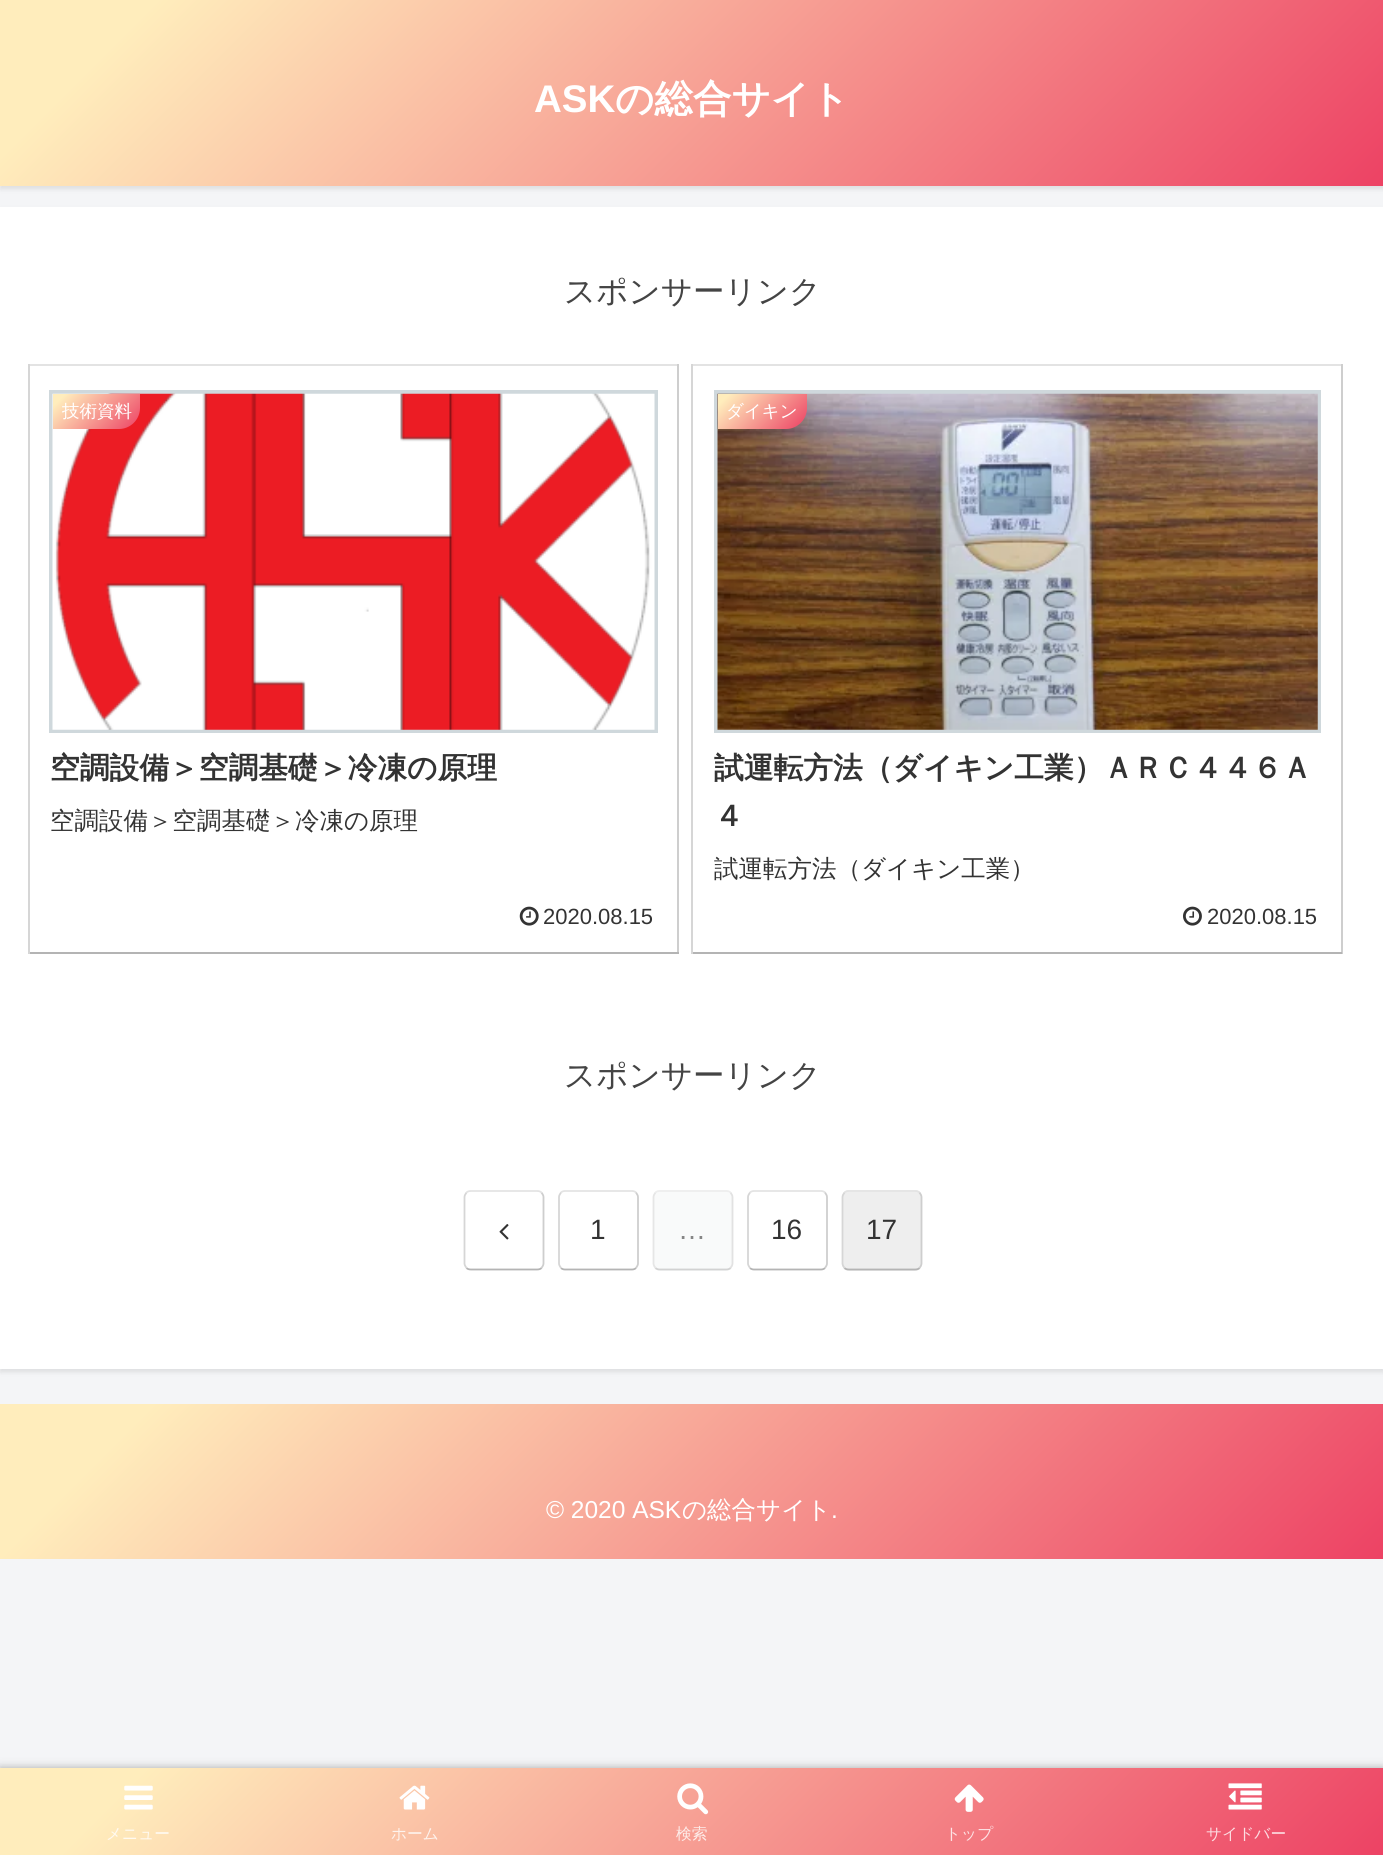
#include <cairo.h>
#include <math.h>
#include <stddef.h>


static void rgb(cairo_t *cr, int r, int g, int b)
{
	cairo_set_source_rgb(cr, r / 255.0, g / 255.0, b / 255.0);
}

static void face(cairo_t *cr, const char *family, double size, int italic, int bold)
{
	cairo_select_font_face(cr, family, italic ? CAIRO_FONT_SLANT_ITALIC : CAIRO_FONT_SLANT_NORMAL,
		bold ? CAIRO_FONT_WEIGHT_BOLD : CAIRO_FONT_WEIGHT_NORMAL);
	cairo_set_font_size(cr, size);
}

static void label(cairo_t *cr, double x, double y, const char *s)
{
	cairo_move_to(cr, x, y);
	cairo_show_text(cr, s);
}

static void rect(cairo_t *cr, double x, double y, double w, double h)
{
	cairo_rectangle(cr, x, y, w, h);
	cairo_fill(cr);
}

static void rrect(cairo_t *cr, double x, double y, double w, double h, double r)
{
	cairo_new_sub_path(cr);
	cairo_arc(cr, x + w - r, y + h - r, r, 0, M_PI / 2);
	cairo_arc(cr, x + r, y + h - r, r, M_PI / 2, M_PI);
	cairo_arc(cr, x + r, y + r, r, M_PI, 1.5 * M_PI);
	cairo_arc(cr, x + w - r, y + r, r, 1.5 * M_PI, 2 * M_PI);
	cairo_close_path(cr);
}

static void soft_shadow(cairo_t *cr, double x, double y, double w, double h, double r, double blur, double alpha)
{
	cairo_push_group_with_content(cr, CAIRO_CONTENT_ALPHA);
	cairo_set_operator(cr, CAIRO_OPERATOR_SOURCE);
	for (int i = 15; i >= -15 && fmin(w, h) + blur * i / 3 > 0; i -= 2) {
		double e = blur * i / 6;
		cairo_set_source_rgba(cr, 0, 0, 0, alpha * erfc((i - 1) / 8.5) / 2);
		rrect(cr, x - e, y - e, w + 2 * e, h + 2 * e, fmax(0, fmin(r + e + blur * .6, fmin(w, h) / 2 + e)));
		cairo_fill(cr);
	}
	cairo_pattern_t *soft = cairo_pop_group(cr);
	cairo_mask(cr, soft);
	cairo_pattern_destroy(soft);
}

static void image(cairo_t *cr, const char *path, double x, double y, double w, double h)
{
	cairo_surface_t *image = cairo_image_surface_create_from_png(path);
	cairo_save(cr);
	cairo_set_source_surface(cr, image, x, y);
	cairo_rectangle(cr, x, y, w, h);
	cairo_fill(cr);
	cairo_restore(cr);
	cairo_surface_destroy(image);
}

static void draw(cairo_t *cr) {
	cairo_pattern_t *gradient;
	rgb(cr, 244, 245, 247);
	cairo_paint(cr);
	rgb(cr, 0, 0, 0);
	soft_shadow(cr, 0, 4, 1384, 185, 0, 2.5, 0.1);
	gradient = cairo_pattern_create_linear(300, -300, 1085, 485);
	cairo_pattern_add_color_stop_rgba(gradient, 0.1, 1, 0.929, 0.737, 1);
	cairo_pattern_add_color_stop_rgba(gradient, 1, 0.929, 0.259, 0.392, 1);
	cairo_set_source(cr, gradient);
	cairo_pattern_destroy(gradient);
	rect(cr, 0, 0, 1383, 186);
	face(cr, "Liberation Sans", 38.5, 0, 1);
	rgb(cr, 255, 255, 255);
	label(cr, 534, 112, "ASK");
	face(cr, "WenQuanYi Zen Hei", 38.5, 0, 1);
	label(cr, 615, 112, "の総合サイト");
	rgb(cr, 0, 0, 0);
	soft_shadow(cr, 0, 210, 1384, 1162, 0, 2.5, 0.1);
	rgb(cr, 255, 255, 255);
	rect(cr, 0, 207, 1383, 1162);
	face(cr, "WenQuanYi Zen Hei Medium", 31.5, 0, 0);
	rgb(cr, 68, 68, 68);
	label(cr, 564, 302, "スポンサーリンク");
	rgb(cr, 227, 227, 227);
	rect(cr, 28, 364, 651, 2);
	rgb(cr, 206, 206, 206);
	rect(cr, 677, 364, 2, 590);
	rgb(cr, 180, 180, 180);
	rect(cr, 28, 952, 651, 2);
	rgb(cr, 214, 214, 214);
	rect(cr, 28, 364, 2, 590);
	cairo_rectangle(cr, 51, 392, 605, 339);
	rgb(cr, 207, 216, 220);
	cairo_set_line_width(cr, 4);
	cairo_stroke(cr);
	image(cr, "image0.png", 52, 393, 603, 337);
	gradient = cairo_pattern_create_linear(66, 381, 127, 442);
	cairo_pattern_add_color_stop_rgba(gradient, 0.1, 1, 0.929, 0.737, 1);
	cairo_pattern_add_color_stop_rgba(gradient, 1, 0.929, 0.259, 0.392, 1);
	cairo_set_source(cr, gradient);
	cairo_pattern_destroy(gradient);
	cairo_new_path(cr);
	cairo_move_to(cr, 53, 394);
	cairo_line_to(cr, 140, 394);
	cairo_line_to(cr, 140, 408);
	cairo_curve_to(cr, 140, 419.5, 130.5, 429, 119, 429);
	cairo_line_to(cr, 53, 429);
	cairo_close_path(cr);
	cairo_fill(cr);
	face(cr, "WenQuanYi Zen Hei Medium", 17.5, 0, 0);
	rgb(cr, 255, 255, 255);
	label(cr, 62, 417, "技術資料");
	face(cr, "WenQuanYi Zen Hei", 29.75, 0, 1);
	rgb(cr, 51, 51, 51);
	label(cr, 50, 778, "空調設備＞空調基礎＞冷凍の原理");
	face(cr, "WenQuanYi Zen Hei Medium", 24.5, 0, 0);
	label(cr, 50, 829, "空調設備＞空調基礎＞冷凍の原理");
	image(cr, "image1.png", 519, 906, 20, 20);
	face(cr, "Liberation Sans", 22, 0, 0);
	label(cr, 543, 924, "2020.08.15");
	rgb(cr, 227, 227, 227);
	rect(cr, 691, 364, 651, 2);
	rgb(cr, 206, 206, 206);
	rect(cr, 1341, 364, 2, 590);
	rgb(cr, 180, 180, 180);
	rect(cr, 691, 952, 651, 2);
	rgb(cr, 214, 214, 214);
	rect(cr, 691, 364, 2, 590);
	cairo_rectangle(cr, 716, 392, 603, 339);
	rgb(cr, 207, 216, 220);
	cairo_stroke(cr);
	image(cr, "image2.png", 717, 393, 601, 337);
	gradient = cairo_pattern_create_linear(731, 380, 793, 442);
	cairo_pattern_add_color_stop_rgba(gradient, 0.1, 1, 0.929, 0.737, 1);
	cairo_pattern_add_color_stop_rgba(gradient, 1, 0.929, 0.259, 0.392, 1);
	cairo_set_source(cr, gradient);
	cairo_pattern_destroy(gradient);
	cairo_new_path(cr);
	cairo_move_to(cr, 718, 394);
	cairo_line_to(cr, 807, 394);
	cairo_line_to(cr, 807, 408);
	cairo_curve_to(cr, 807, 419.5, 797.5, 429, 786, 429);
	cairo_line_to(cr, 718, 429);
	cairo_close_path(cr);
	cairo_fill(cr);
	face(cr, "WenQuanYi Zen Hei Medium", 17.5, 0, 0);
	rgb(cr, 255, 255, 255);
	label(cr, 726, 417, "ダイキン");
	face(cr, "WenQuanYi Zen Hei", 29.75, 0, 1);
	rgb(cr, 51, 51, 51);
	label(cr, 714, 778, "試運転方法（ダイキン工業）ＡＲＣ４４６Ａ");
	label(cr, 714, 826, "４");
	face(cr, "WenQuanYi Zen Hei Medium", 24.5, 0, 0);
	label(cr, 714, 877, "試運転方法（ダイキン工業）");
	image(cr, "image3.png", 1183, 906, 19, 20);
	face(cr, "Liberation Sans", 22, 0, 0);
	label(cr, 1207, 924, "2020.08.15");
	face(cr, "WenQuanYi Zen Hei Medium", 31.5, 0, 0);
	rgb(cr, 68, 68, 68);
	label(cr, 564, 1086, "スポンサーリンク");
	cairo_new_path(cr);
	cairo_move_to(cr, 466.5, 1192.5);
	cairo_curve_to(cr, 467.5, 1191.5, 469, 1191, 471, 1191);
	cairo_line_to(cr, 537, 1191);
	cairo_curve_to(cr, 539, 1191, 540.5, 1191.5, 541.5, 1192.5);
	rgb(cr, 227, 227, 227);
	cairo_set_line_width(cr, 1.8);
	cairo_stroke(cr);
	cairo_new_path(cr);
	cairo_move_to(cr, 541.5, 1192.5);
	cairo_curve_to(cr, 542.5, 1194, 543.5, 1195.5, 543.5, 1197);
	cairo_line_to(cr, 543.5, 1263.5);
	cairo_curve_to(cr, 543.5, 1265, 542.5, 1266.5, 541.5, 1268);
	rgb(cr, 206, 206, 206);
	cairo_stroke(cr);
	cairo_new_path(cr);
	cairo_move_to(cr, 541.5, 1268);
	cairo_curve_to(cr, 540.5, 1269, 539, 1269.5, 537, 1269.5);
	cairo_line_to(cr, 471, 1269.5);
	cairo_curve_to(cr, 469, 1269.5, 467.5, 1269, 466.5, 1268);
	rgb(cr, 180, 180, 180);
	cairo_stroke(cr);
	cairo_new_path(cr);
	cairo_move_to(cr, 466.5, 1268);
	cairo_curve_to(cr, 465.5, 1266.5, 464.5, 1265, 464.5, 1263.5);
	cairo_line_to(cr, 464.5, 1197);
	cairo_curve_to(cr, 464.5, 1195.5, 465.5, 1194, 466.5, 1192.5);
	rgb(cr, 214, 214, 214);
	cairo_stroke(cr);
	image(cr, "image4.png", 499, 1224, 10, 16);
	cairo_new_path(cr);
	cairo_move_to(cr, 561, 1192.5);
	cairo_curve_to(cr, 562, 1191.5, 563.5, 1191, 565, 1191);
	cairo_line_to(cr, 632, 1191);
	cairo_curve_to(cr, 633.5, 1191, 635, 1191.5, 636, 1192.5);
	rgb(cr, 227, 227, 227);
	cairo_stroke(cr);
	cairo_new_path(cr);
	cairo_move_to(cr, 636, 1192.5);
	cairo_curve_to(cr, 637, 1194, 638, 1195.5, 638, 1197);
	cairo_line_to(cr, 638, 1263.5);
	cairo_curve_to(cr, 638, 1265, 637, 1266.5, 636, 1268);
	rgb(cr, 206, 206, 206);
	cairo_stroke(cr);
	cairo_new_path(cr);
	cairo_move_to(cr, 636, 1268);
	cairo_curve_to(cr, 635, 1269, 633.5, 1269.5, 632, 1269.5);
	cairo_line_to(cr, 565, 1269.5);
	cairo_curve_to(cr, 563.5, 1269.5, 562, 1269, 561, 1268);
	rgb(cr, 180, 180, 180);
	cairo_stroke(cr);
	cairo_new_path(cr);
	cairo_move_to(cr, 561, 1268);
	cairo_curve_to(cr, 560, 1266.5, 559, 1265, 559, 1263.5);
	cairo_line_to(cr, 559, 1197);
	cairo_curve_to(cr, 559, 1195.5, 560, 1194, 561, 1192.5);
	rgb(cr, 214, 214, 214);
	cairo_stroke(cr);
	face(cr, "Liberation Sans", 28, 0, 0);
	rgb(cr, 51, 51, 51);
	label(cr, 590, 1239, "1");
	rgb(cr, 249, 250, 250);
	rrect(cr, 653, 1190, 80, 81, 7);
	cairo_fill(cr);
	cairo_new_path(cr);
	cairo_move_to(cr, 655.5, 1192.5);
	cairo_curve_to(cr, 656.5, 1191.5, 658, 1191, 660, 1191);
	cairo_line_to(cr, 726, 1191);
	cairo_curve_to(cr, 728, 1191, 729.5, 1191.5, 730.5, 1192.5);
	rgb(cr, 238, 238, 238);
	cairo_stroke(cr);
	cairo_new_path(cr);
	cairo_move_to(cr, 730.5, 1192.5);
	cairo_curve_to(cr, 731.5, 1194, 732.5, 1195.5, 732.5, 1197);
	cairo_line_to(cr, 732.5, 1263.5);
	cairo_curve_to(cr, 732.5, 1265, 731.5, 1266.5, 730.5, 1268);
	rgb(cr, 226, 226, 226);
	cairo_stroke(cr);
	cairo_new_path(cr);
	cairo_move_to(cr, 730.5, 1268);
	cairo_curve_to(cr, 729.5, 1269, 728, 1269.5, 726, 1269.5);
	cairo_line_to(cr, 660, 1269.5);
	cairo_curve_to(cr, 658, 1269.5, 656.5, 1269, 655.5, 1268);
	rgb(cr, 210, 210, 210);
	cairo_stroke(cr);
	cairo_new_path(cr);
	cairo_move_to(cr, 655.5, 1268);
	cairo_curve_to(cr, 654.5, 1266.5, 653.5, 1265, 653.5, 1263.5);
	cairo_line_to(cr, 653.5, 1197);
	cairo_curve_to(cr, 653.5, 1195.5, 654.5, 1194, 655.5, 1192.5);
	rgb(cr, 230, 230, 230);
	cairo_stroke(cr);
	rgb(cr, 133, 133, 133);
	label(cr, 678, 1239, "…");
	cairo_new_path(cr);
	cairo_move_to(cr, 750, 1192.5);
	cairo_curve_to(cr, 751, 1191.5, 752.5, 1191, 754, 1191);
	cairo_line_to(cr, 821, 1191);
	cairo_curve_to(cr, 822.5, 1191, 824, 1191.5, 825, 1192.5);
	rgb(cr, 227, 227, 227);
	cairo_stroke(cr);
	cairo_new_path(cr);
	cairo_move_to(cr, 825, 1192.5);
	cairo_curve_to(cr, 826, 1194, 827, 1195.5, 827, 1197);
	cairo_line_to(cr, 827, 1263.5);
	cairo_curve_to(cr, 827, 1265, 826, 1266.5, 825, 1268);
	rgb(cr, 206, 206, 206);
	cairo_stroke(cr);
	cairo_new_path(cr);
	cairo_move_to(cr, 825, 1268);
	cairo_curve_to(cr, 824, 1269, 822.5, 1269.5, 821, 1269.5);
	cairo_line_to(cr, 754, 1269.5);
	cairo_curve_to(cr, 752.5, 1269.5, 751, 1269, 750, 1268);
	rgb(cr, 180, 180, 180);
	cairo_stroke(cr);
	cairo_new_path(cr);
	cairo_move_to(cr, 750, 1268);
	cairo_curve_to(cr, 749, 1266.5, 748, 1265, 748, 1263.5);
	cairo_line_to(cr, 748, 1197);
	cairo_curve_to(cr, 748, 1195.5, 749, 1194, 750, 1192.5);
	rgb(cr, 214, 214, 214);
	cairo_stroke(cr);
	rgb(cr, 51, 51, 51);
	label(cr, 771, 1239, "16");
	rgb(cr, 238, 238, 238);
	rrect(cr, 842, 1190, 80, 81, 7);
	cairo_fill(cr);
	cairo_new_path(cr);
	cairo_move_to(cr, 844.5, 1192.5);
	cairo_curve_to(cr, 845.5, 1191.5, 847, 1191, 849, 1191);
	cairo_line_to(cr, 915, 1191);
	cairo_curve_to(cr, 917, 1191, 918.5, 1191.5, 919.5, 1192.5);
	rgb(cr, 227, 227, 227);
	cairo_stroke(cr);
	cairo_new_path(cr);
	cairo_move_to(cr, 919.5, 1192.5);
	cairo_curve_to(cr, 920.5, 1194, 921.5, 1195.5, 921.5, 1197);
	cairo_line_to(cr, 921.5, 1263.5);
	cairo_curve_to(cr, 921.5, 1265, 920.5, 1266.5, 919.5, 1268);
	rgb(cr, 206, 206, 206);
	cairo_stroke(cr);
	cairo_new_path(cr);
	cairo_move_to(cr, 919.5, 1268);
	cairo_curve_to(cr, 918.5, 1269, 917, 1269.5, 915, 1269.5);
	cairo_line_to(cr, 849, 1269.5);
	cairo_curve_to(cr, 847, 1269.5, 845.5, 1269, 844.5, 1268);
	rgb(cr, 180, 180, 180);
	cairo_stroke(cr);
	cairo_new_path(cr);
	cairo_move_to(cr, 844.5, 1268);
	cairo_curve_to(cr, 843.5, 1266.5, 842.5, 1265, 842.5, 1263.5);
	cairo_line_to(cr, 842.5, 1197);
	cairo_curve_to(cr, 842.5, 1195.5, 843.5, 1194, 844.5, 1192.5);
	rgb(cr, 214, 214, 214);
	cairo_stroke(cr);
	rgb(cr, 51, 51, 51);
	label(cr, 866, 1239, "17");
	gradient = cairo_pattern_create_linear(307, 1096, 1077, 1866);
	cairo_pattern_add_color_stop_rgba(gradient, 0.1, 1, 0.929, 0.737, 1);
	cairo_pattern_add_color_stop_rgba(gradient, 1, 0.929, 0.259, 0.392, 1);
	cairo_set_source(cr, gradient);
	cairo_pattern_destroy(gradient);
	rect(cr, 0, 1404, 1383, 155);
	face(cr, "Liberation Sans", 24.5, 0, 0);
	rgb(cr, 255, 255, 255);
	label(cr, 546, 1518, "© 2020 ASK");
	face(cr, "WenQuanYi Zen Hei Medium", 24.5, 0, 0);
	label(cr, 682, 1518, "の総合サイト");
	face(cr, "Liberation Sans", 24.5, 0, 0);
	label(cr, 831, 1518, ".");
	rgb(cr, 169, 169, 169);
	soft_shadow(cr, 0, 1768, 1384, 87, 0, 4.5, 1);
	gradient = cairo_pattern_create_linear(324, 1443, 1060, 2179);
	cairo_pattern_add_color_stop_rgba(gradient, 0.1, 1, 0.929, 0.737, 1);
	cairo_pattern_add_color_stop_rgba(gradient, 1, 0.929, 0.259, 0.392, 1);
	cairo_set_source(cr, gradient);
	cairo_pattern_destroy(gradient);
	rect(cr, 0, 1768, 1383, 87);
	image(cr, "image5.png", 124, 1785, 29, 25);
	face(cr, "WenQuanYi Zen Hei Medium", 15.75, 0, 0);
	rgb(cr, 255, 250, 241);
	label(cr, 106, 1839, "メニュー");
	image(cr, "image6.png", 399, 1785, 31, 25);
	rgb(cr, 254, 243, 237);
	label(cr, 391, 1839, "ホーム");
	image(cr, "image7.png", 677, 1783, 32, 32);
	rgb(cr, 253, 236, 233);
	label(cr, 676, 1839, "検索");
	image(cr, "image8.png", 954, 1784, 30, 28);
	rgb(cr, 253, 228, 230);
	label(cr, 945, 1839, "トップ");
	image(cr, "image9.png", 1228, 1783, 34, 27);
	rgb(cr, 252, 221, 226);
	label(cr, 1206, 1839, "サイドバー");
}

int main(void) {
	cairo_surface_t *surface = cairo_image_surface_create(CAIRO_FORMAT_RGB24, 1383, 1855);
	cairo_t *cr = cairo_create(surface);
	cairo_font_options_t *options = cairo_font_options_create();
	cairo_font_options_set_hint_metrics(options, CAIRO_HINT_METRICS_OFF);
	cairo_font_options_set_hint_style(options, CAIRO_HINT_STYLE_NONE);
	cairo_set_font_options(cr, options);
	cairo_set_miter_limit(cr, 4);
	draw(cr);
	cairo_surface_write_to_png(surface, "render.png");
	cairo_font_options_destroy(options);
	cairo_destroy(cr);
	cairo_surface_destroy(surface);
	return 0;
}
